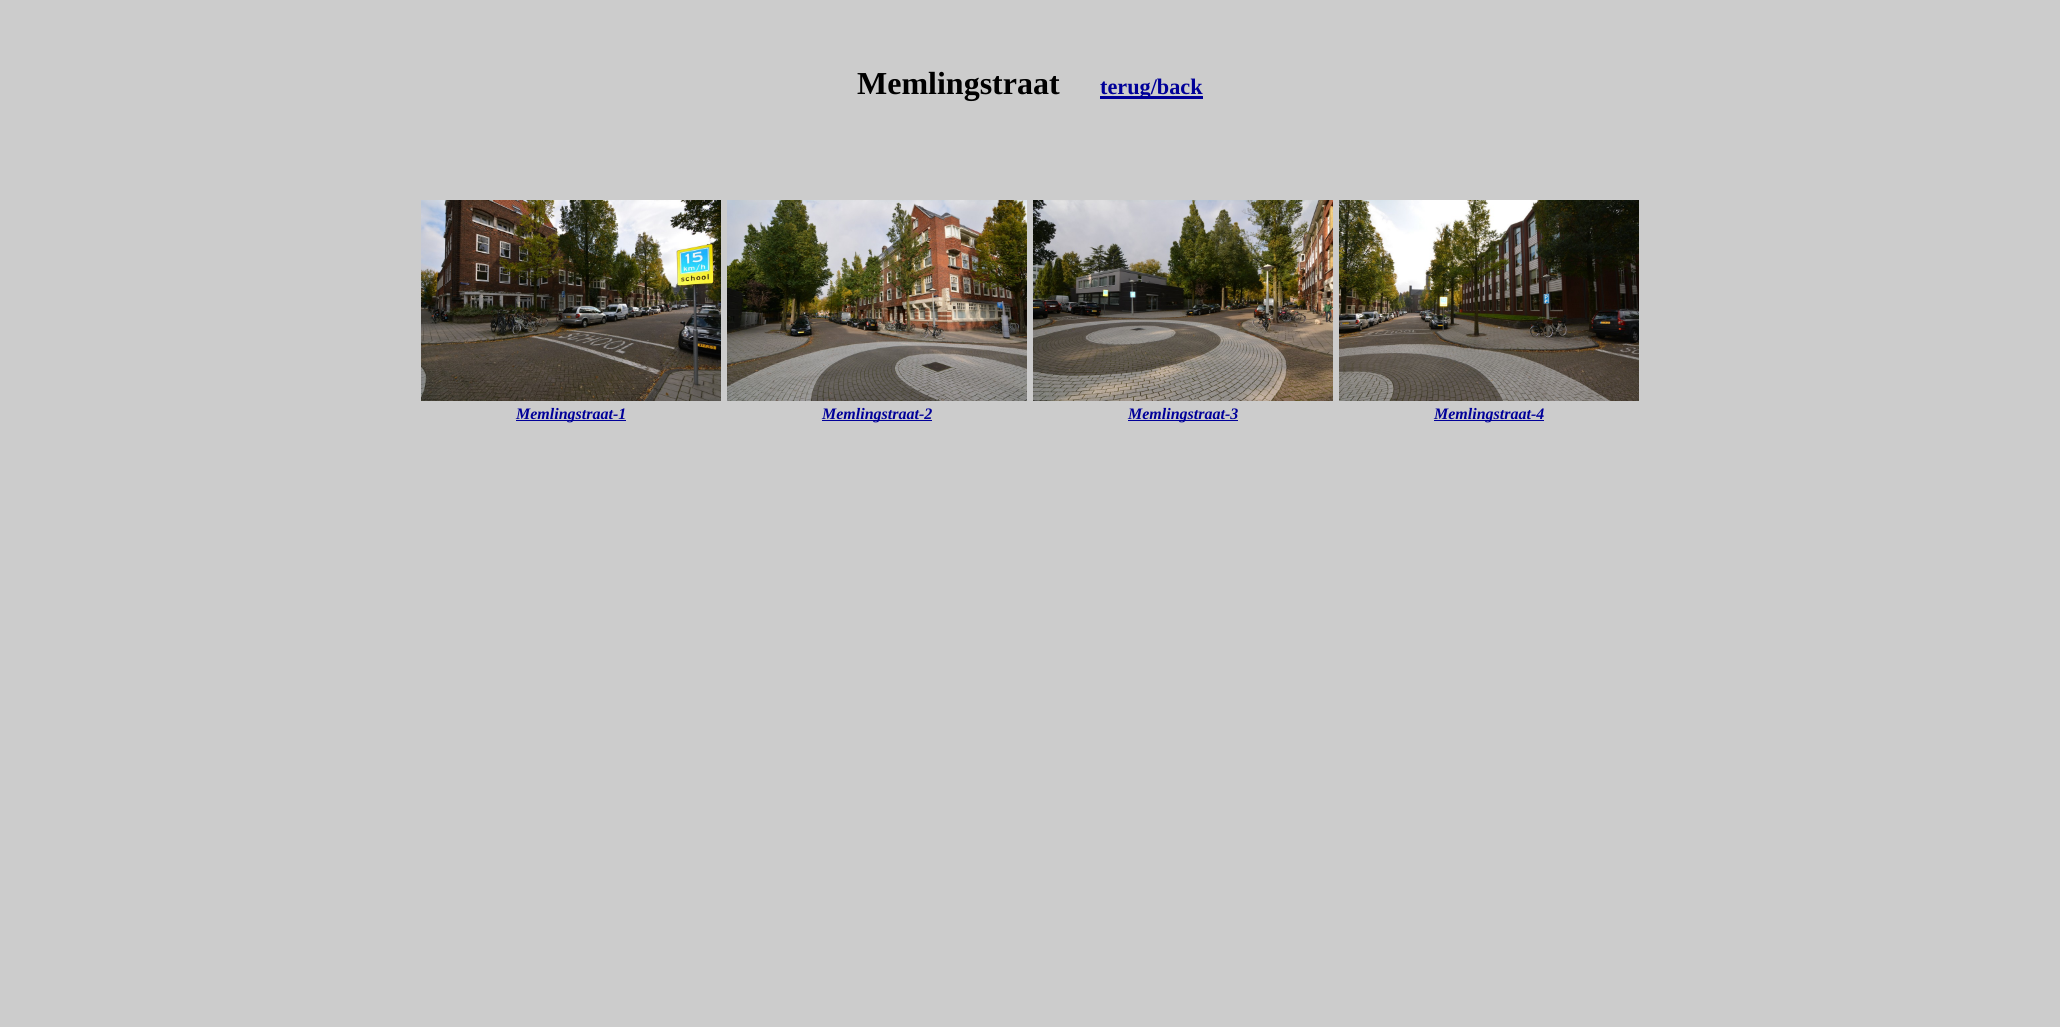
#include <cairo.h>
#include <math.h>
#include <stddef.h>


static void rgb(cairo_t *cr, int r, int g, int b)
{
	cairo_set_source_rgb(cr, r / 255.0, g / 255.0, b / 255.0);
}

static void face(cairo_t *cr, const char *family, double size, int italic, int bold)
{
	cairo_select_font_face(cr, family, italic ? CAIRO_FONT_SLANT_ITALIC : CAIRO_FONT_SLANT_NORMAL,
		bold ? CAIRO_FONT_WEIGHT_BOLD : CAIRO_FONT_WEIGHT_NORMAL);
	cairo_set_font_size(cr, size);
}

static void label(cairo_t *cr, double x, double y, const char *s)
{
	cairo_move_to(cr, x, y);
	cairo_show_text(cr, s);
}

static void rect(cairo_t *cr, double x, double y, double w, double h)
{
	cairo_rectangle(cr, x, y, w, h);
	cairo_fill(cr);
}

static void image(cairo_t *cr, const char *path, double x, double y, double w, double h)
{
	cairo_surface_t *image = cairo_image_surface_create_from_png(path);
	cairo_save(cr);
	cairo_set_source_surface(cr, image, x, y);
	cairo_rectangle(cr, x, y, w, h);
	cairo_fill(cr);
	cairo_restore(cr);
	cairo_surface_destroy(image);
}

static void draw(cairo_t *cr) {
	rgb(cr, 204, 204, 204);
	cairo_paint(cr);
	face(cr, "Liberation Serif", 32, 0, 1);
	rgb(cr, 0, 0, 0);
	label(cr, 857, 94, "Memlingstraat");
	rgb(cr, 0, 0, 153);
	rect(cr, 1100, 96, 103, 3);
	face(cr, "Liberation Serif", 22.25, 0, 1);
	label(cr, 1100, 94, "terug/back");
	image(cr, "image0.png", 421, 200, 300, 201);
	rect(cr, 516, 420, 110, 1);
	face(cr, "Liberation Serif", 16, 1, 1);
	label(cr, 516, 419, "Memlingstraat-1");
	image(cr, "image1.png", 727, 200, 300, 201);
	rect(cr, 822, 420, 110, 1);
	label(cr, 822, 419, "Memlingstraat-2");
	image(cr, "image2.png", 1033, 200, 300, 201);
	rect(cr, 1128, 420, 110, 1);
	label(cr, 1128, 419, "Memlingstraat-3");
	image(cr, "image3.png", 1339, 200, 300, 201);
	rect(cr, 1434, 420, 110, 1);
	label(cr, 1434, 419, "Memlingstraat-4");
}

int main(void) {
	cairo_surface_t *surface = cairo_image_surface_create(CAIRO_FORMAT_RGB24, 2060, 1027);
	cairo_t *cr = cairo_create(surface);
	cairo_font_options_t *options = cairo_font_options_create();
	cairo_font_options_set_hint_metrics(options, CAIRO_HINT_METRICS_OFF);
	cairo_font_options_set_hint_style(options, CAIRO_HINT_STYLE_NONE);
	cairo_set_font_options(cr, options);
	cairo_set_miter_limit(cr, 4);
	draw(cr);
	cairo_surface_write_to_png(surface, "render.png");
	cairo_font_options_destroy(options);
	cairo_destroy(cr);
	cairo_surface_destroy(surface);
	return 0;
}
